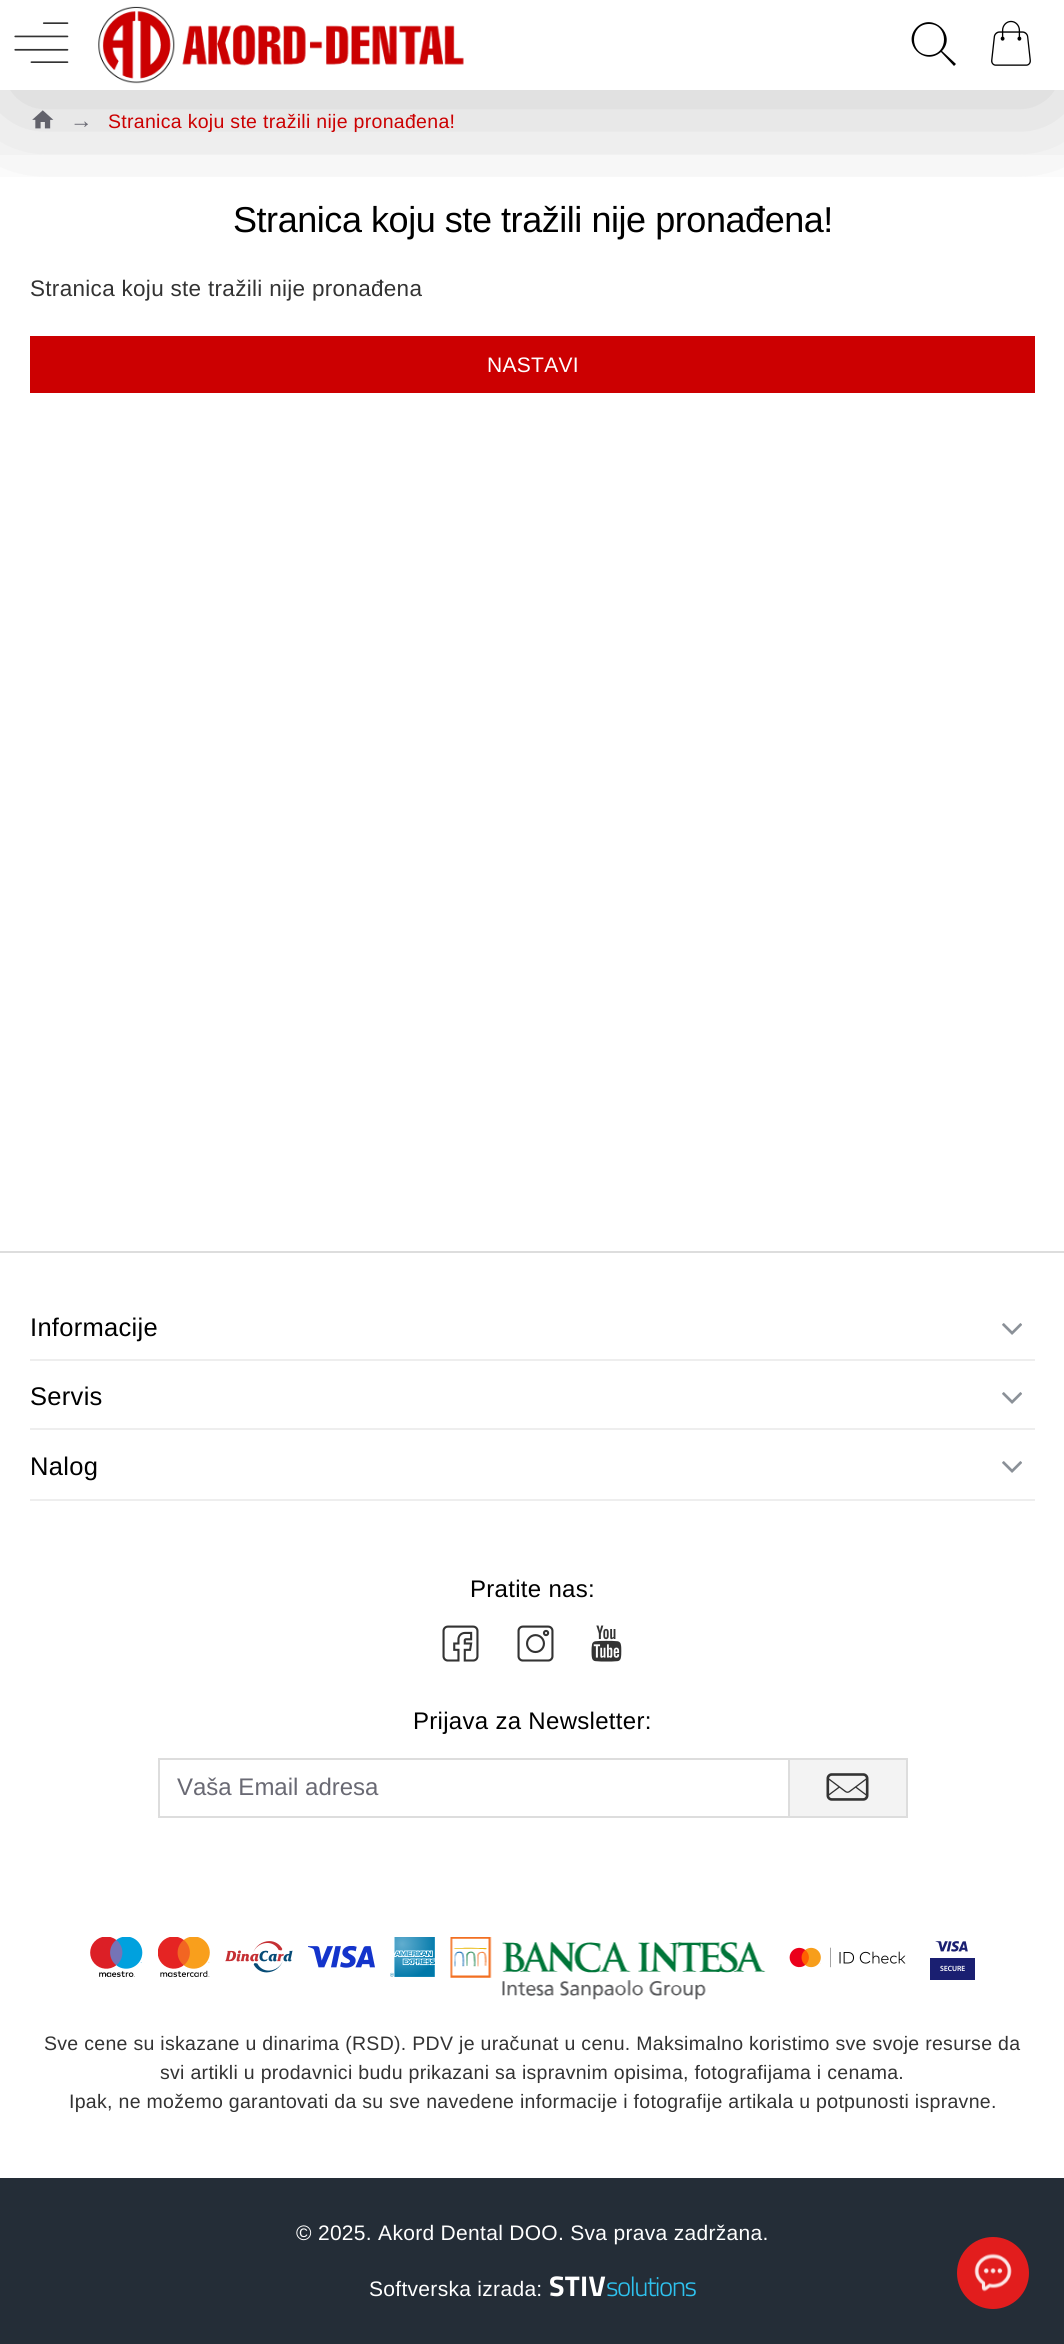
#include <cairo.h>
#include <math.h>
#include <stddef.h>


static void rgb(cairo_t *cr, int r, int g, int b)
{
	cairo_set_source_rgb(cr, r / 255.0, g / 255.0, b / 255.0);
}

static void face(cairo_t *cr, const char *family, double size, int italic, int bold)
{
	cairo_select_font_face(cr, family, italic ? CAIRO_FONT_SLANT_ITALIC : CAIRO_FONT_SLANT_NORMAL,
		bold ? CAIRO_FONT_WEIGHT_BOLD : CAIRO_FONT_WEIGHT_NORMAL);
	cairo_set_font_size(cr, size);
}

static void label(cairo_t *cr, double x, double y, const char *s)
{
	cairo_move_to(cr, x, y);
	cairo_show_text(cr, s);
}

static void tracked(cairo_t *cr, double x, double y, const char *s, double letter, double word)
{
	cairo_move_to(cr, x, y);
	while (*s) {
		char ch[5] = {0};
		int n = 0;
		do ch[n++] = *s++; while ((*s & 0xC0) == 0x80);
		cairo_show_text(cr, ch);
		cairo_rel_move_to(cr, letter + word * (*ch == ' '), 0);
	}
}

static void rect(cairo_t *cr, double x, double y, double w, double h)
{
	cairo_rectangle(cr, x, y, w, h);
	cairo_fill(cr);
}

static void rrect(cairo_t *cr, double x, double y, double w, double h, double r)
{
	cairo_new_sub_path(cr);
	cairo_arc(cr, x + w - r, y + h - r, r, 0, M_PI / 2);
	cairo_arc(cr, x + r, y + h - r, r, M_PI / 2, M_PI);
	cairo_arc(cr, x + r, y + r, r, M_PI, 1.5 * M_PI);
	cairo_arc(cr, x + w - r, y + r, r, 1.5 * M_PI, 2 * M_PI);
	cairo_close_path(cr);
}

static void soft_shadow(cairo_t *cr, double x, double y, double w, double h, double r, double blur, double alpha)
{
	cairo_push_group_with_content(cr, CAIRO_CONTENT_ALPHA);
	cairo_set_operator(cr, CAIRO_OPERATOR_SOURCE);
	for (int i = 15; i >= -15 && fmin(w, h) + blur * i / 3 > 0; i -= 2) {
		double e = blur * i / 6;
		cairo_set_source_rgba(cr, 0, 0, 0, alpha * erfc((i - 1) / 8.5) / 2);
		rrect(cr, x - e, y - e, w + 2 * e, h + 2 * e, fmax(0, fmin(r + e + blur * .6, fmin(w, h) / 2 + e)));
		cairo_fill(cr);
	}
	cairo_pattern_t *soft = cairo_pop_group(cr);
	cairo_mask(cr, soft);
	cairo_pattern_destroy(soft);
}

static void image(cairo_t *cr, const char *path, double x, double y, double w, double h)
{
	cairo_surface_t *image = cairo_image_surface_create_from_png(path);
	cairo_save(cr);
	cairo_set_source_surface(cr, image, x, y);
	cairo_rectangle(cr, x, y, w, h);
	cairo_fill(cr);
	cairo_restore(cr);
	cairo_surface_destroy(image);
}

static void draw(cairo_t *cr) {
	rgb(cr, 255, 255, 255);
	cairo_paint(cr);
	rgb(cr, 250, 250, 250);
	rect(cr, 0, 90, 1064, 65);
	image(cr, "image3.png", 32, 110, 22, 19);
	cairo_save(cr);
	cairo_rectangle(cr, 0, 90, 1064, 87);
	cairo_clip(cr);
	rgb(cr, 0, 0, 0);
	soft_shadow(cr, 15, 38, 1035, 60, 0, 67.5, 0.2);
	cairo_restore(cr);
	image(cr, "image0.png", 98, 6, 366, 78);
	image(cr, "image1.png", 14, 22, 55, 41);
	rgb(cr, 0, 0, 0);
	cairo_new_path(cr);
	cairo_move_to(cr, 941, 52);
	cairo_line_to(cr, 954, 66);
	cairo_line_to(cr, 956, 64);
	cairo_line_to(cr, 942, 51);
	cairo_curve_to(cr, 957, 35, 933, 12, 917, 27);
	cairo_curve_to(cr, 901, 43, 924, 67, 941, 52);
	cairo_close_path(cr);
	cairo_move_to(cr, 929, 24);
	cairo_curve_to(cr, 949, 24, 949, 55, 929, 55);
	cairo_curve_to(cr, 909, 55, 909, 24, 929, 24);
	cairo_close_path(cr);
	cairo_fill(cr);
	image(cr, "image2.png", 991, 20, 40, 46);
	face(cr, "Liberation Sans", 22.5, 0, 0);
	rgb(cr, 105, 105, 115);
	tracked(cr, 70, 128, "→", 0.3, 0);
	face(cr, "Liberation Sans", 19.5, 0, 0);
	rgb(cr, 204, 0, 1);
	tracked(cr, 108, 128, "Stranica koju ste tražili nije pronađena!", 0.3, 0);
	face(cr, "Liberation Sans", 36, 0, 0);
	rgb(cr, 0, 0, 0);
	tracked(cr, 233, 232, "Stranica koju ste tražili nije pronađena!", -0.45, 0);
	face(cr, "Liberation Sans", 22.5, 0, 0);
	rgb(cr, 51, 51, 51);
	tracked(cr, 30, 296, "Stranica koju ste tražili nije pronađena", 0.3, 0);
	rgb(cr, 204, 0, 1);
	rect(cr, 30, 336, 1005, 57);
	face(cr, "Liberation Sans", 21, 0, 0);
	rgb(cr, 255, 255, 255);
	tracked(cr, 487, 372, "NASTAVI", 0.3, 0);
	rgb(cr, 221, 221, 221);
	rect(cr, 0, 1251, 1064, 2);
	rgb(cr, 238, 238, 238);
	rect(cr, 30, 1359, 1005, 2);
	face(cr, "Liberation Sans", 25.5, 0, 0);
	rgb(cr, 0, 0, 0);
	tracked(cr, 30, 1336, "Informacije", 0.3, 0);
	image(cr, "image4.png", 1002, 1323, 20, 12);
	rgb(cr, 238, 238, 238);
	rect(cr, 30, 1428, 1005, 2);
	rgb(cr, 0, 0, 0);
	tracked(cr, 30, 1405, "Servis", 0.3, 0);
	image(cr, "image4.png", 1002, 1392, 20, 12);
	rgb(cr, 238, 238, 238);
	rect(cr, 30, 1499, 1005, 2);
	rgb(cr, 0, 0, 0);
	tracked(cr, 30, 1475, "Nalog", 0.3, 0);
	image(cr, "image4.png", 1002, 1461, 20, 12);
	face(cr, "Liberation Sans", 24, 0, 0);
	tracked(cr, 470, 1597, "Pratite nas:", 0.3, 0);
	image(cr, "image5.png", 442, 1625, 37, 37);
	image(cr, "image6.png", 517, 1625, 37, 37);
	image(cr, "image7.png", 591, 1625, 31, 37);
	tracked(cr, 413, 1729, "Prijava za Newsletter:", 0.3, 0);
	cairo_rectangle(cr, 159, 1759, 748, 58);
	rgb(cr, 221, 221, 221);
	cairo_stroke(cr);
	rgb(cr, 105, 105, 115);
	label(cr, 177, 1795, "Vaša Email adresa");
	rgb(cr, 243, 243, 243);
	cairo_rectangle(cr, 789, 1759, 118, 58);
	cairo_fill_preserve(cr);
	rgb(cr, 221, 221, 221);
	cairo_stroke(cr);
	image(cr, "image8.png", 826, 1773, 43, 28);
	image(cr, "image9.png", 90, 1937, 53, 40);
	image(cr, "image10.png", 158, 1937, 52, 40);
	image(cr, "image11.png", 225, 1941, 68, 32);
	image(cr, "image12.png", 308, 1946, 67, 22);
	image(cr, "image13.png", 390, 1937, 45, 40);
	image(cr, "image14.png", 450, 1937, 316, 63);
	image(cr, "image15.png", 789, 1947, 117, 21);
	image(cr, "image16.png", 930, 1941, 45, 39);
	face(cr, "Liberation Sans", 19.5, 0, 0);
	rgb(cr, 51, 51, 51);
	tracked(cr, 44, 2050, "Sve cene su iskazane u dinarima (RSD). PDV je uračunat u cenu. Maksimalno koristimo sve svoje resurse da", 0.3, 0);
	tracked(cr, 160, 2079, "svi artikli u prodavnici budu prikazani sa ispravnim opisima, fotografijama i cenama.", 0.3, 0);
	tracked(cr, 69, 2108, "Ipak, ne možemo garantovati da su sve navedene informacije i fotografije artikala u potpunosti ispravne.", 0.3, 0);
	rgb(cr, 36, 45, 55);
	rect(cr, 0, 2178, 1064, 166);
	face(cr, "Liberation Sans", 21, 0, 0);
	rgb(cr, 255, 255, 255);
	tracked(cr, 296, 2240, "© 2025. Akord Dental DOO. Sva prava zadržana.", 0.3, 0);
	tracked(cr, 369, 2296, "Softverska izrada:", 0.3, 0);
	face(cr, "Titillium Web", 28.5, 0, 1);
	tracked(cr, 549, 2296, "STIV", 0.3, 0);
	face(cr, "Titillium Web Light", 27, 0, 0);
	rgb(cr, 46, 194, 239);
	tracked(cr, 606, 2296, "solutions", -1.5, 0);
	rgb(cr, 226, 29, 29);
	cairo_new_path(cr);
	cairo_arc(cr, 993, 2273, 36, 0, 2 * M_PI);
	cairo_fill(cr);
	image(cr, "image17.png", 974, 2253, 38, 39);
}

int main(void) {
	cairo_surface_t *surface = cairo_image_surface_create(CAIRO_FORMAT_RGB24, 1064, 2344);
	cairo_t *cr = cairo_create(surface);
	cairo_font_options_t *options = cairo_font_options_create();
	cairo_font_options_set_hint_metrics(options, CAIRO_HINT_METRICS_OFF);
	cairo_font_options_set_hint_style(options, CAIRO_HINT_STYLE_NONE);
	cairo_set_font_options(cr, options);
	cairo_set_miter_limit(cr, 4);
	draw(cr);
	cairo_surface_write_to_png(surface, "render.png");
	cairo_font_options_destroy(options);
	cairo_destroy(cr);
	cairo_surface_destroy(surface);
	return 0;
}
